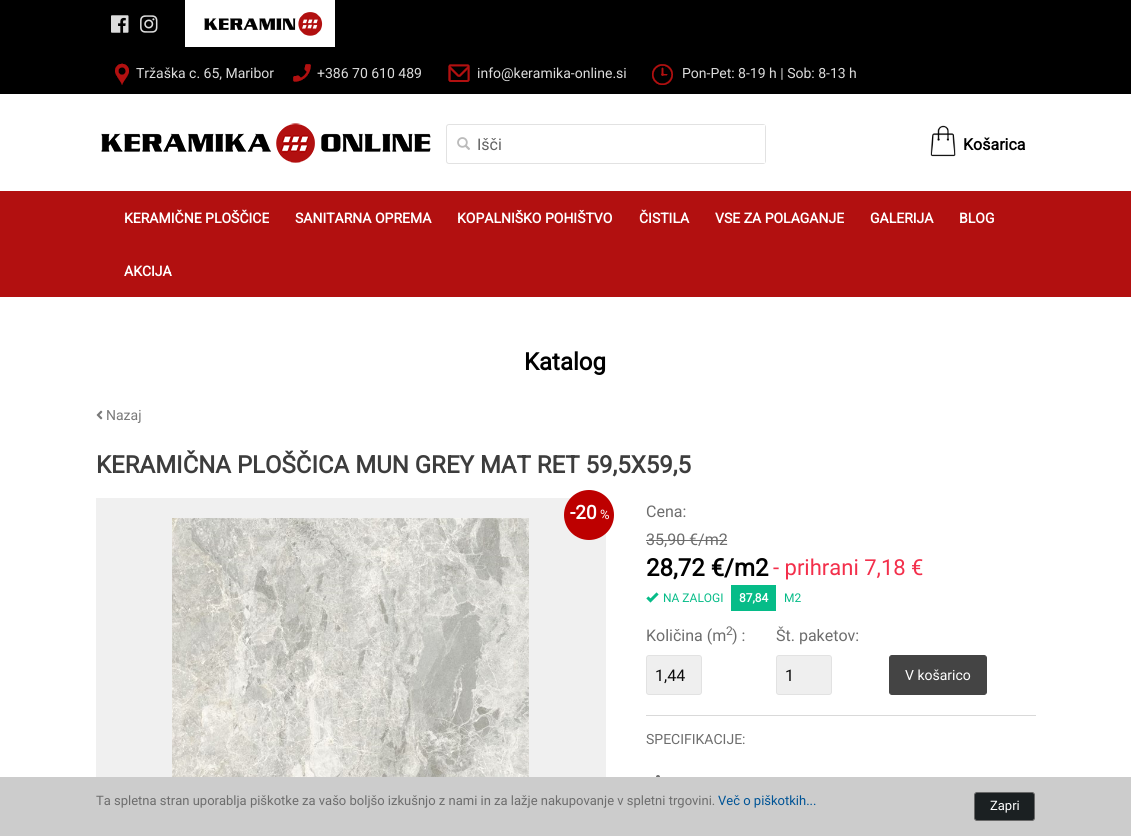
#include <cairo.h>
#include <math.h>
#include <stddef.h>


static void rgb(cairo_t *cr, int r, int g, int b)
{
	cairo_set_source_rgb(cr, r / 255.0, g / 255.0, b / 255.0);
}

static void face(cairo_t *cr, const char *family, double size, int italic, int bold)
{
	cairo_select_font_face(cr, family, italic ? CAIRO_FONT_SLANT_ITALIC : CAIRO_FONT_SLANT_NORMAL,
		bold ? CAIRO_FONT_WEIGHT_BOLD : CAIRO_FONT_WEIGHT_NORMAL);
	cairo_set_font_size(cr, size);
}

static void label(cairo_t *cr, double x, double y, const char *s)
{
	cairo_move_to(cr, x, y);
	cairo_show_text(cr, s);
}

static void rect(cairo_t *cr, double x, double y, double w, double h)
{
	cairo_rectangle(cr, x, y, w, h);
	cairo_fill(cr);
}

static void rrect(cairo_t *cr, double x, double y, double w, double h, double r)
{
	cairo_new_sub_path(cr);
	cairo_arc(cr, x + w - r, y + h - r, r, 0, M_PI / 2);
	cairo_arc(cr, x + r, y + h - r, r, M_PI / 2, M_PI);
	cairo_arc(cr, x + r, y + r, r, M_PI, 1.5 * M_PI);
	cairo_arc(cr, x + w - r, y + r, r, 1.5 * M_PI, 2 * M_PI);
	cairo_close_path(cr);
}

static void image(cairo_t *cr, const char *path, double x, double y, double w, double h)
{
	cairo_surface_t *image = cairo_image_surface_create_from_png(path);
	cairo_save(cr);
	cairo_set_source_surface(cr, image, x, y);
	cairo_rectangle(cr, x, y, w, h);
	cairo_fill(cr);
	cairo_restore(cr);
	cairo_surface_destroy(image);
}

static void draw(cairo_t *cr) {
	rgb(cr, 255, 255, 255);
	cairo_paint(cr);
	rgb(cr, 0, 0, 0);
	rect(cr, 0, 0, 1131, 94);
	image(cr, "image0.png", 111, 15, 18, 18);
	image(cr, "image1.png", 140, 15, 18, 18);
	image(cr, "image2.png", 185, 0, 150, 47);
	image(cr, "image3.png", 115, 63, 14, 22);
	face(cr, "Roboto", 14, 0, 0);
	rgb(cr, 220, 220, 220);
	label(cr, 136, 78, "Tržaška c. 65, Maribor");
	image(cr, "image4.png", 293, 64, 18, 18);
	label(cr, 317, 78, "+386 70 610 489");
	image(cr, "image5.png", 448, 64, 22, 18);
	label(cr, 477, 78, "info@keramika-online.si");
	image(cr, "image6.png", 652, 64, 21, 21);
	label(cr, 682, 78, "Pon-Pet: 8-19 h | Sob: 8-13 h");
	image(cr, "image7.png", 101, 123, 330, 40);
	rrect(cr, 446.5, 124.5, 319, 39, 2.5);
	rgb(cr, 226, 226, 226);
	cairo_set_line_width(cr, 1);
	cairo_stroke(cr);
	image(cr, "image8.png", 457, 137, 13, 13);
	rgb(cr, 255, 255, 255);
	rect(cr, 763, 125, 2, 38);
	face(cr, "Roboto", 16, 0, 0);
	rgb(cr, 98, 98, 98);
	label(cr, 477, 150, "Išči");
	image(cr, "image9.png", 930, 125, 26, 32);
	face(cr, "Roboto", 16, 0, 1);
	rgb(cr, 0, 0, 0);
	label(cr, 963, 150, "Košarica");
	rgb(cr, 178, 16, 16);
	rect(cr, 0, 191, 1131, 106);
	face(cr, "Roboto", 14, 0, 1);
	rgb(cr, 255, 255, 255);
	label(cr, 124, 223, "KERAMIČNE PLOŠČICE");
	label(cr, 295, 223, "SANITARNA OPREMA");
	label(cr, 457, 223, "KOPALNIŠKO POHIŠTVO");
	label(cr, 639, 223, "ČISTILA");
	label(cr, 715, 223, "VSE ZA POLAGANJE");
	label(cr, 870, 223, "GALERIJA");
	label(cr, 959, 223, "BLOG");
	label(cr, 124, 276, "AKCIJA");
	face(cr, "Roboto", 24, 0, 1);
	rgb(cr, 0, 0, 0);
	label(cr, 524, 370, "Katalog");
	image(cr, "image10.png", 96, 410, 7, 10);
	face(cr, "Roboto", 14, 0, 0);
	rgb(cr, 121, 121, 121);
	label(cr, 106, 420, "Nazaj");
	face(cr, "Roboto", 24, 0, 1);
	rgb(cr, 61, 61, 61);
	label(cr, 96, 473, "KERAMIČNA PLOŠČICA MUN GREY MAT RET 59,5X59,5");
	rgb(cr, 240, 240, 240);
	rect(cr, 96, 498, 510, 279);
	rgb(cr, 189, 0, 0);
	cairo_new_path(cr);
	cairo_arc(cr, 589, 515, 25, 0, 2 * M_PI);
	cairo_fill(cr);
	face(cr, "Roboto", 19, 0, 1);
	rgb(cr, 255, 255, 255);
	label(cr, 570, 519, "-20");
	face(cr, "Roboto", 13, 0, 0);
	label(cr, 600, 519, "%");
	image(cr, "image11.png", 172, 518, 357, 259);
	face(cr, "Roboto", 16, 0, 0);
	rgb(cr, 109, 109, 109);
	label(cr, 646, 517, "Cena:");
	label(cr, 646, 545, "35,90 €/m2");
	rect(cr, 646, 540, 81, 1);
	face(cr, "Roboto", 24, 0, 1);
	rgb(cr, 0, 0, 0);
	label(cr, 646, 576, "28,72 €/m2");
	face(cr, "Roboto", 22, 0, 0);
	rgb(cr, 243, 47, 75);
	label(cr, 773, 575, "- prihrani 7,18 €");
	image(cr, "image12.png", 646, 592, 13, 11);
	face(cr, "Roboto", 12, 0, 0);
	rgb(cr, 6, 188, 136);
	label(cr, 663, 602, "NA ZALOGI");
	rect(cr, 731, 585, 45, 26);
	face(cr, "Roboto", 12, 0, 1);
	rgb(cr, 255, 255, 255);
	label(cr, 739, 602, "87,84");
	face(cr, "Roboto", 12, 0, 0);
	rgb(cr, 6, 188, 136);
	label(cr, 784, 602, "M2");
	face(cr, "Roboto", 16, 0, 0);
	rgb(cr, 109, 109, 109);
	label(cr, 646, 641, "Količina (m");
	label(cr, 732, 641, ") :");
	face(cr, "Roboto", 12, 0, 0);
	label(cr, 726, 635, "2");
	rgb(cr, 239, 239, 239);
	rrect(cr, 646.5, 655.5, 55, 39, 2.5);
	cairo_fill_preserve(cr);
	rgb(cr, 226, 226, 226);
	cairo_stroke(cr);
	face(cr, "Roboto", 16, 0, 0);
	rgb(cr, 12, 12, 12);
	label(cr, 655, 681, "1,44");
	rgb(cr, 109, 109, 109);
	label(cr, 776, 641, "Št. paketov:");
	rgb(cr, 239, 239, 239);
	rrect(cr, 776.5, 655.5, 55, 39, 2.5);
	cairo_fill_preserve(cr);
	rgb(cr, 226, 226, 226);
	cairo_stroke(cr);
	rgb(cr, 12, 12, 12);
	label(cr, 785, 681, "1");
	rgb(cr, 68, 68, 68);
	rrect(cr, 889.5, 655.5, 97, 39, 2.5);
	cairo_fill_preserve(cr);
	cairo_stroke(cr);
	face(cr, "Roboto", 14, 0, 0);
	rgb(cr, 255, 255, 255);
	label(cr, 905, 680, "V košarico");
	rgb(cr, 217, 217, 217);
	rect(cr, 646, 715, 390, 1);
	rgb(cr, 109, 109, 109);
	label(cr, 646, 744, "SPECIFIKACIJE:");
	cairo_new_path(cr);
	cairo_arc(cr, 658, 777, 2, 0, 2 * M_PI);
	cairo_fill(cr);
	rgb(cr, 204, 204, 204);
	rect(cr, 0, 777, 1131, 59);
	face(cr, "Roboto", 13, 0, 0);
	rgb(cr, 109, 109, 109);
	label(cr, 96, 805, "Ta spletna stran uporablja piškotke za vašo boljšo izkušnjo z nami in za lažje nakupovanje v spletni trgovini.");
	rgb(cr, 0, 84, 150);
	label(cr, 718, 805, "Več o piškotkih...");
	rgb(cr, 27, 32, 34);
	rrect(cr, 974.5, 792.5, 60, 28, 2.5);
	cairo_fill_preserve(cr);
	rgb(cr, 104, 104, 104);
	cairo_stroke(cr);
	rgb(cr, 255, 255, 255);
	label(cr, 990, 810, "Zapri");
}

int main(void) {
	cairo_surface_t *surface = cairo_image_surface_create(CAIRO_FORMAT_RGB24, 1131, 836);
	cairo_t *cr = cairo_create(surface);
	cairo_font_options_t *options = cairo_font_options_create();
	cairo_font_options_set_hint_metrics(options, CAIRO_HINT_METRICS_OFF);
	cairo_font_options_set_hint_style(options, CAIRO_HINT_STYLE_NONE);
	cairo_set_font_options(cr, options);
	cairo_set_miter_limit(cr, 4);
	draw(cr);
	cairo_surface_write_to_png(surface, "render.png");
	cairo_font_options_destroy(options);
	cairo_destroy(cr);
	cairo_surface_destroy(surface);
	return 0;
}
